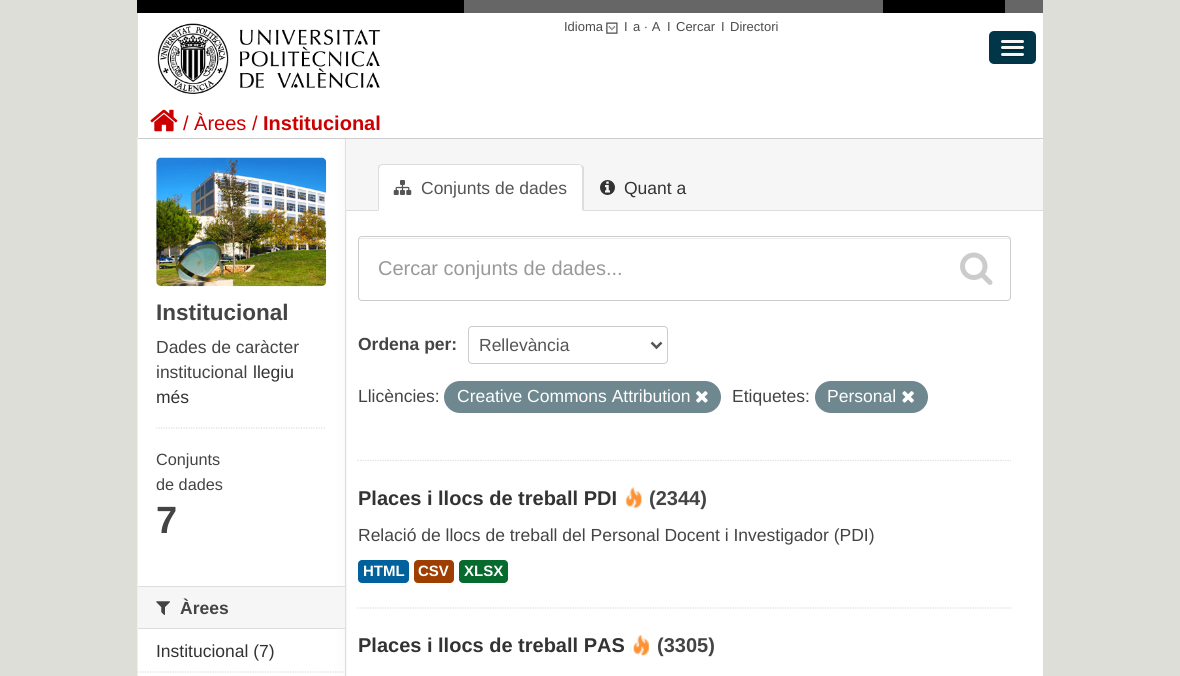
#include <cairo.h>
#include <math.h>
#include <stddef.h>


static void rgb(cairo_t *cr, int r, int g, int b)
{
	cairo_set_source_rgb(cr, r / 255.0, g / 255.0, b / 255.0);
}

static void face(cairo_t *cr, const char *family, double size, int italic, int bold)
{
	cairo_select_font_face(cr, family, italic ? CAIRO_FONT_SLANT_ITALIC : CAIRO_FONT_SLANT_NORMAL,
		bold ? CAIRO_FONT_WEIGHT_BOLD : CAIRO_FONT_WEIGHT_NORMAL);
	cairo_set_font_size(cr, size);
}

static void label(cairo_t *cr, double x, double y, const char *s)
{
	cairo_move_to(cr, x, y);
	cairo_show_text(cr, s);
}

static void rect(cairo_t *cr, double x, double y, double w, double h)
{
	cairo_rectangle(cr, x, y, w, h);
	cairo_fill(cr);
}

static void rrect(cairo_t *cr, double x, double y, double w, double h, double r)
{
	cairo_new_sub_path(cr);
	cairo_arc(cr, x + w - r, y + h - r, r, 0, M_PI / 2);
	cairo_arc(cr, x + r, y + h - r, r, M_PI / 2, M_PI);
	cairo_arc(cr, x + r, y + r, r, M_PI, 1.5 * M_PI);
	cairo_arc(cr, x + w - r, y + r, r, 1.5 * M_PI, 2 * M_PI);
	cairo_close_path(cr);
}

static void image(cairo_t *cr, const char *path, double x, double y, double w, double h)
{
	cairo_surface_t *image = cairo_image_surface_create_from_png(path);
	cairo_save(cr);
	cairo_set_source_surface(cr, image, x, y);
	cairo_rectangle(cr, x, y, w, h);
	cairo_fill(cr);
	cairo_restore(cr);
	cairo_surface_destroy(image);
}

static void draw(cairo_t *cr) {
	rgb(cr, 222, 222, 217);
	cairo_paint(cr);
	rgb(cr, 102, 102, 102);
	rect(cr, 464, 0, 579, 13);
	rgb(cr, 0, 0, 0);
	rect(cr, 137, 0, 327, 13);
	rect(cr, 883, 0, 122, 13);
	rgb(cr, 255, 255, 255);
	rect(cr, 138, 13, 905, 663);
	image(cr, "image0.png", 157, 23, 223, 71);
	face(cr, "Liberation Sans", 13, 0, 0);
	rgb(cr, 75, 75, 75);
	label(cr, 564, 31, "Idioma");
	image(cr, "image1.png", 606, 22, 12, 12);
	label(cr, 624, 31, "I");
	label(cr, 633, 31, "a · A");
	label(cr, 667, 31, "I");
	label(cr, 676, 31, "Cercar");
	label(cr, 721, 31, "I");
	label(cr, 730, 31, "Directori");
	rgb(cr, 0, 54, 71);
	rrect(cr, 989, 31, 47, 33, 5);
	cairo_fill(cr);
	rgb(cr, 0, 41, 53);
	cairo_new_path(cr);
	cairo_move_to(cr, 1001.5, 41.5);
	cairo_curve_to(cr, 999, 44.5, 1005.5, 44, 1006, 44);
	cairo_line_to(cr, 1019, 44);
	cairo_curve_to(cr, 1019.5, 44, 1026, 44.5, 1023.5, 41.5);
	cairo_curve_to(cr, 1023.5, 42, 1023, 42.5, 1022.5, 42.5);
	cairo_line_to(cr, 1002.5, 42.5);
	cairo_curve_to(cr, 1002, 42.5, 1001.5, 42, 1001.5, 41.5);
	cairo_close_path(cr);
	cairo_fill(cr);
	rgb(cr, 245, 245, 245);
	rrect(cr, 1001, 40, 23, 3, 1.5);
	cairo_fill(cr);
	rgb(cr, 0, 41, 53);
	cairo_new_path(cr);
	cairo_move_to(cr, 1001.5, 48.5);
	cairo_curve_to(cr, 1000.5, 49, 1001, 50.5, 1002, 51);
	cairo_line_to(cr, 1019, 51);
	cairo_curve_to(cr, 1020, 51, 1023.5, 52, 1024, 50);
	cairo_curve_to(cr, 1024, 49.5, 1024, 48.5, 1023.5, 48.5);
	cairo_curve_to(cr, 1022.5, 49, 1002.5, 49, 1001.5, 48.5);
	cairo_close_path(cr);
	cairo_fill(cr);
	rgb(cr, 245, 245, 245);
	rrect(cr, 1001, 46, 23, 3, 1.5);
	cairo_fill(cr);
	rgb(cr, 0, 41, 53);
	cairo_new_path(cr);
	cairo_move_to(cr, 1001.5, 54.5);
	cairo_line_to(cr, 1001, 56);
	cairo_curve_to(cr, 1001.5, 58, 1005, 57, 1006, 57);
	cairo_line_to(cr, 1019, 57);
	cairo_curve_to(cr, 1020, 57, 1023.5, 58, 1024, 56);
	cairo_line_to(cr, 1023.5, 54.5);
	cairo_line_to(cr, 1022.5, 55);
	cairo_line_to(cr, 1002.5, 55);
	cairo_close_path(cr);
	cairo_fill(cr);
	rgb(cr, 245, 245, 245);
	rrect(cr, 1001, 53, 23, 3, 1.5);
	cairo_fill(cr);
	image(cr, "image2.png", 150, 109, 28, 23);
	face(cr, "Liberation Sans", 20, 0, 0);
	rgb(cr, 204, 0, 0);
	label(cr, 183, 130, "/ Àrees /");
	face(cr, "Liberation Sans", 20, 0, 1);
	label(cr, 263, 130, "Institucional");
	image(cr, "image3.png", 137, 137, 210, 539);
	rgb(cr, 204, 204, 204);
	rect(cr, 138, 138, 905, 1);
	image(cr, "image4.png", 156, 157, 171, 130);
	face(cr, "Liberation Sans", 22.5, 0, 1);
	rgb(cr, 68, 68, 68);
	label(cr, 156, 320, "Institucional");
	face(cr, "Liberation Sans", 17.5, 0, 0);
	label(cr, 156, 353, "Dades de caràcter");
	label(cr, 156, 378, "institucional");
	rgb(cr, 51, 51, 51);
	label(cr, 253, 378, "llegiu");
	label(cr, 156, 403, "més");
	cairo_new_path(cr);
	cairo_move_to(cr, 156, 428);
	cairo_line_to(cr, 326, 428);
	rgb(cr, 221, 221, 221);
	cairo_set_line_width(cr, 1.2);
	cairo_set_dash(cr, (double[]){1.25, 1.25}, 2, 0);
	cairo_stroke(cr);
	face(cr, "Liberation Sans", 16.25, 0, 0);
	rgb(cr, 68, 68, 68);
	label(cr, 156, 465, "Conjunts");
	label(cr, 156, 490, "de dades");
	face(cr, "Liberation Sans", 38, 0, 1);
	label(cr, 156, 533, "7");
	rgb(cr, 246, 246, 246);
	rect(cr, 138, 587, 207, 41);
	rgb(cr, 221, 221, 221);
	rect(cr, 138, 586, 207, 1);
	rect(cr, 138, 628, 207, 1);
	image(cr, "image5.png", 156, 601, 14, 14);
	face(cr, "Liberation Sans", 17.5, 0, 1);
	rgb(cr, 68, 68, 68);
	label(cr, 180, 614, "Àrees");
	face(cr, "Liberation Sans", 17.5, 0, 0);
	rgb(cr, 51, 51, 51);
	label(cr, 156, 657, "Institucional (7)");
	cairo_new_path(cr);
	cairo_move_to(cr, 137.5, 672);
	cairo_line_to(cr, 345, 672);
	rgb(cr, 221, 221, 221);
	cairo_stroke(cr);
	rgb(cr, 246, 246, 246);
	cairo_new_path(cr);
	cairo_move_to(cr, 346, 139);
	cairo_line_to(cr, 1039, 139);
	cairo_curve_to(cr, 1041, 139, 1043, 141, 1043, 143);
	cairo_line_to(cr, 1043, 211);
	cairo_line_to(cr, 346, 211);
	cairo_close_path(cr);
	cairo_fill(cr);
	rgb(cr, 221, 221, 221);
	rect(cr, 346, 210, 697, 1);
	rgb(cr, 255, 255, 255);
	cairo_new_path(cr);
	cairo_move_to(cr, 383, 164);
	cairo_line_to(cr, 579, 164);
	cairo_curve_to(cr, 582, 164, 584, 166, 584, 169);
	cairo_line_to(cr, 584, 211);
	cairo_line_to(cr, 378, 211);
	cairo_line_to(cr, 378, 169);
	cairo_curve_to(cr, 378, 166, 380, 164, 383, 164);
	cairo_close_path(cr);
	cairo_fill(cr);
	rgb(cr, 221, 221, 221);
	cairo_new_path(cr);
	cairo_move_to(cr, 382, 164);
	cairo_curve_to(cr, 381, 164, 380, 165, 379, 165);
	cairo_line_to(cr, 380, 166);
	cairo_line_to(cr, 382, 165);
	cairo_line_to(cr, 580, 165);
	cairo_line_to(cr, 581, 166);
	cairo_line_to(cr, 582, 165);
	cairo_line_to(cr, 579, 164);
	cairo_close_path(cr);
	cairo_fill(cr);
	cairo_new_path(cr);
	cairo_move_to(cr, 582, 165);
	cairo_line_to(cr, 584, 167);
	cairo_line_to(cr, 584, 211);
	cairo_line_to(cr, 582, 210);
	cairo_line_to(cr, 582, 169);
	cairo_line_to(cr, 581, 166);
	cairo_close_path(cr);
	cairo_fill(cr);
	cairo_new_path(cr);
	cairo_move_to(cr, 379, 165);
	cairo_curve_to(cr, 378, 166, 378, 168, 378, 169);
	cairo_line_to(cr, 378, 211);
	cairo_line_to(cr, 379, 210);
	cairo_line_to(cr, 379, 169);
	cairo_line_to(cr, 380, 166);
	cairo_close_path(cr);
	cairo_fill(cr);
	image(cr, "image6.png", 393, 180, 19, 15);
	rgb(cr, 85, 85, 85);
	label(cr, 421, 194, "Conjunts de dades");
	image(cr, "image7.png", 600, 180, 15, 15);
	rgb(cr, 51, 51, 51);
	label(cr, 624, 194, "Quant a");
	cairo_new_path(cr);
	cairo_move_to(cr, 357.5, 460.5);
	cairo_line_to(cr, 1011, 460.5);
	rgb(cr, 221, 221, 221);
	cairo_stroke(cr);
	rgb(cr, 236, 236, 236);
	cairo_new_path(cr);
	cairo_move_to(cr, 361, 239);
	cairo_line_to(cr, 1008, 239);
	cairo_curve_to(cr, 1009, 239, 1010, 240, 1010, 241);
	cairo_curve_to(cr, 1010, 239, 1009, 238, 1008, 238);
	cairo_line_to(cr, 362, 238);
	cairo_curve_to(cr, 360, 238, 359, 239, 359, 241);
	cairo_curve_to(cr, 359, 240, 360, 239, 361, 239);
	cairo_close_path(cr);
	cairo_fill(cr);
	rrect(cr, 358.5, 236.5, 652, 64, 3.5);
	rgb(cr, 204, 204, 204);
	cairo_set_line_width(cr, 1);
	cairo_set_dash(cr, NULL, 0, 0);
	cairo_stroke(cr);
	face(cr, "Liberation Sans", 20, 0, 0);
	rgb(cr, 153, 153, 153);
	label(cr, 378, 275, "Cercar conjunts de dades...");
	image(cr, "image8.png", 960, 252, 33, 33);
	face(cr, "Liberation Sans", 17.5, 0, 1);
	rgb(cr, 68, 68, 68);
	label(cr, 358, 350, "Ordena per:");
	rrect(cr, 468.5, 326.5, 199, 37, 3.5);
	rgb(cr, 204, 204, 204);
	cairo_stroke(cr);
	cairo_new_path(cr);
	cairo_move_to(cr, 651.5, 342.5);
	cairo_line_to(cr, 656.5, 347.5);
	cairo_line_to(cr, 661.5, 342.5);
	rgb(cr, 85, 85, 85);
	cairo_set_line_width(cr, 2.5);
	cairo_stroke(cr);
	face(cr, "Liberation Sans", 17.5, 0, 0);
	label(cr, 479, 351, "Rellevància");
	rgb(cr, 68, 68, 68);
	label(cr, 358, 402, "Llicències:");
	rgb(cr, 111, 136, 144);
	rrect(cr, 444, 381, 277, 32, 16);
	cairo_fill(cr);
	rgb(cr, 255, 255, 255);
	label(cr, 457, 402, "Creative Commons Attribution");
	image(cr, "image9.png", 696, 391, 12, 12);
	rgb(cr, 68, 68, 68);
	label(cr, 732, 402, "Etiquetes:");
	rgb(cr, 111, 136, 144);
	rrect(cr, 815, 381, 113, 32, 16);
	cairo_fill(cr);
	rgb(cr, 255, 255, 255);
	label(cr, 827, 402, "Personal");
	image(cr, "image10.png", 902, 391, 12, 12);
	cairo_new_path(cr);
	cairo_move_to(cr, 357.5, 608);
	cairo_line_to(cr, 1011, 608);
	rgb(cr, 221, 221, 221);
	cairo_set_line_width(cr, 1.2);
	cairo_set_dash(cr, (double[]){1.25, 1.25}, 2, 0);
	cairo_stroke(cr);
	face(cr, "Liberation Sans", 20, 0, 1);
	rgb(cr, 51, 51, 51);
	label(cr, 358, 505, "Places i llocs de treball PDI");
	image(cr, "image11.png", 626, 487, 16, 21);
	rgb(cr, 68, 68, 68);
	label(cr, 649, 505, "(2344)");
	face(cr, "Liberation Sans", 17.5, 0, 0);
	label(cr, 358, 541, "Relació de llocs de treball del Personal Docent i Investigador (PDI)");
	rgb(cr, 0, 97, 156);
	rrect(cr, 358, 560, 51, 23, 4);
	cairo_fill(cr);
	face(cr, "Liberation Sans", 15, 0, 1);
	rgb(cr, 255, 255, 255);
	label(cr, 363, 576, "HTML");
	rgb(cr, 158, 63, 1);
	rrect(cr, 414, 560, 40, 23, 4);
	cairo_fill(cr);
	rgb(cr, 255, 255, 255);
	label(cr, 418, 576, "CSV");
	rgb(cr, 8, 107, 46);
	rrect(cr, 459, 560, 49, 23, 4);
	cairo_fill(cr);
	rgb(cr, 255, 255, 255);
	label(cr, 464, 576, "XLSX");
	face(cr, "Liberation Sans", 20, 0, 1);
	rgb(cr, 51, 51, 51);
	label(cr, 358, 652, "Places i llocs de treball PAS");
	image(cr, "image12.png", 633, 635, 16, 21);
	rgb(cr, 68, 68, 68);
	label(cr, 657, 652, "(3305)");
}

int main(void) {
	cairo_surface_t *surface = cairo_image_surface_create(CAIRO_FORMAT_RGB24, 1180, 676);
	cairo_t *cr = cairo_create(surface);
	cairo_font_options_t *options = cairo_font_options_create();
	cairo_font_options_set_hint_metrics(options, CAIRO_HINT_METRICS_OFF);
	cairo_font_options_set_hint_style(options, CAIRO_HINT_STYLE_NONE);
	cairo_set_font_options(cr, options);
	cairo_set_miter_limit(cr, 4);
	draw(cr);
	cairo_surface_write_to_png(surface, "render.png");
	cairo_font_options_destroy(options);
	cairo_destroy(cr);
	cairo_surface_destroy(surface);
	return 0;
}
